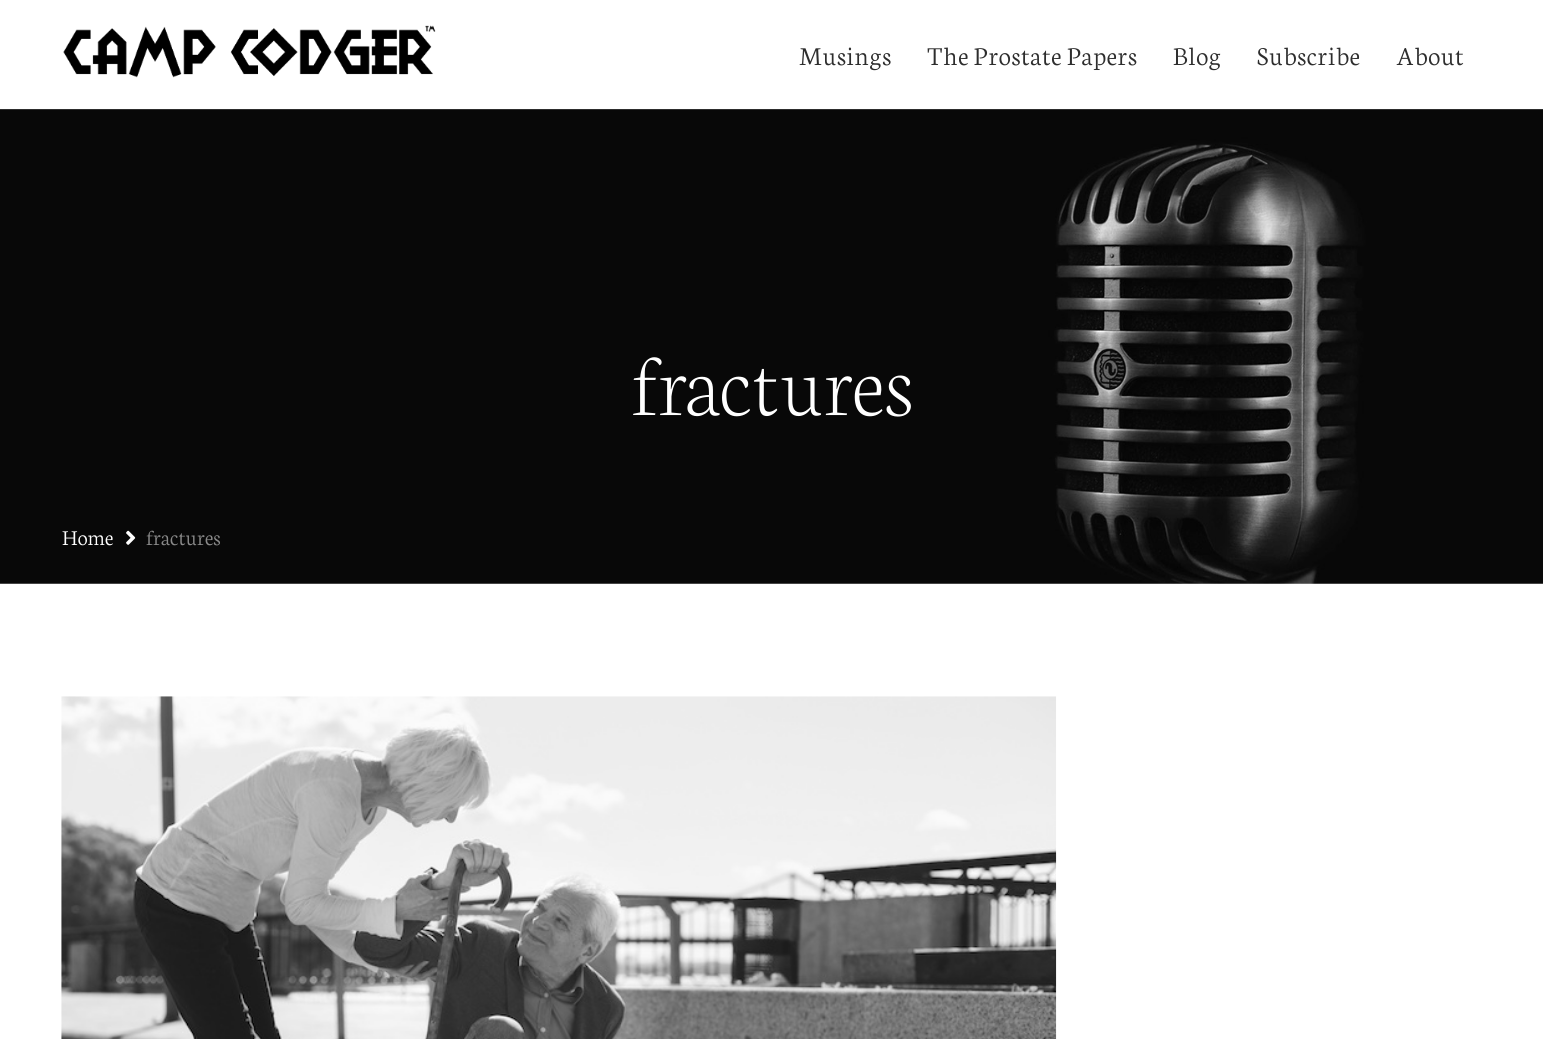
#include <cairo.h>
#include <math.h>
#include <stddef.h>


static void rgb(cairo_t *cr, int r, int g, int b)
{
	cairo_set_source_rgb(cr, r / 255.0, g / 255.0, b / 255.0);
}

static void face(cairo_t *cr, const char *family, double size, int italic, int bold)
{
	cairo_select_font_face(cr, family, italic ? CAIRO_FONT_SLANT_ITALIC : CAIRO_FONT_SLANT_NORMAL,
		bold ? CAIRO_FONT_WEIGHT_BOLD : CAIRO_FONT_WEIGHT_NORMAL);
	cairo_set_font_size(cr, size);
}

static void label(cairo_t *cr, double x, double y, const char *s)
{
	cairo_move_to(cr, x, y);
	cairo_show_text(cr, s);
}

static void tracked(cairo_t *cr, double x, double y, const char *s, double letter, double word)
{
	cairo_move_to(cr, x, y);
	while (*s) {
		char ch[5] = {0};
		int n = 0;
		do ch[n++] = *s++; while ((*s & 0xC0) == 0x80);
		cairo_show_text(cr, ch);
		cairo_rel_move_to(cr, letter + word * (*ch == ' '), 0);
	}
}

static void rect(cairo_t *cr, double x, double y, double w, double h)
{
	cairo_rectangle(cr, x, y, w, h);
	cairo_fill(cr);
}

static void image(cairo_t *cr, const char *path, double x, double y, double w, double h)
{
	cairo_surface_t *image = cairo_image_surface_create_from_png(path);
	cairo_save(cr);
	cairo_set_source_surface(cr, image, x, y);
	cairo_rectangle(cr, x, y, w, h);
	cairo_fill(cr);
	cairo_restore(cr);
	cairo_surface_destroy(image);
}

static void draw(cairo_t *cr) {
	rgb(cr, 255, 255, 255);
	cairo_paint(cr);
	image(cr, "image0.png", 63, 25, 373, 53);
	face(cr, "Neuton Light", 27.5, 0, 0);
	rgb(cr, 45, 45, 45);
	tracked(cr, 799, 65, "Musings", 0.6, 0);
	tracked(cr, 927, 65, "The Prostate Papers", 0.6, 0);
	tracked(cr, 1173, 65, "Blog", 0.6, 0);
	tracked(cr, 1257, 65, "Subscribe", 0.6, 0);
	tracked(cr, 1396, 65, "About", 0.6, 0);
	rect(cr, 0, 109, 1543, 1);
	image(cr, "image1.png", 0, 110, 1543, 474);
	face(cr, "Neuton ExtraLight", 90, 0, 0);
	rgb(cr, 255, 255, 255);
	label(cr, 631, 415, "fractures");
	face(cr, "Neuton Light", 22.5, 0, 0);
	label(cr, 62, 545, "Home");
	image(cr, "image2.png", 126, 530, 10, 15);
	rgb(cr, 138, 138, 138);
	label(cr, 146, 545, "fractures");
	image(cr, "image3.png", 61, 696, 996, 343);
}

int main(void) {
	cairo_surface_t *surface = cairo_image_surface_create(CAIRO_FORMAT_RGB24, 1543, 1039);
	cairo_t *cr = cairo_create(surface);
	cairo_font_options_t *options = cairo_font_options_create();
	cairo_font_options_set_hint_metrics(options, CAIRO_HINT_METRICS_OFF);
	cairo_font_options_set_hint_style(options, CAIRO_HINT_STYLE_NONE);
	cairo_set_font_options(cr, options);
	cairo_set_miter_limit(cr, 4);
	draw(cr);
	cairo_surface_write_to_png(surface, "render.png");
	cairo_font_options_destroy(options);
	cairo_destroy(cr);
	cairo_surface_destroy(surface);
	return 0;
}
